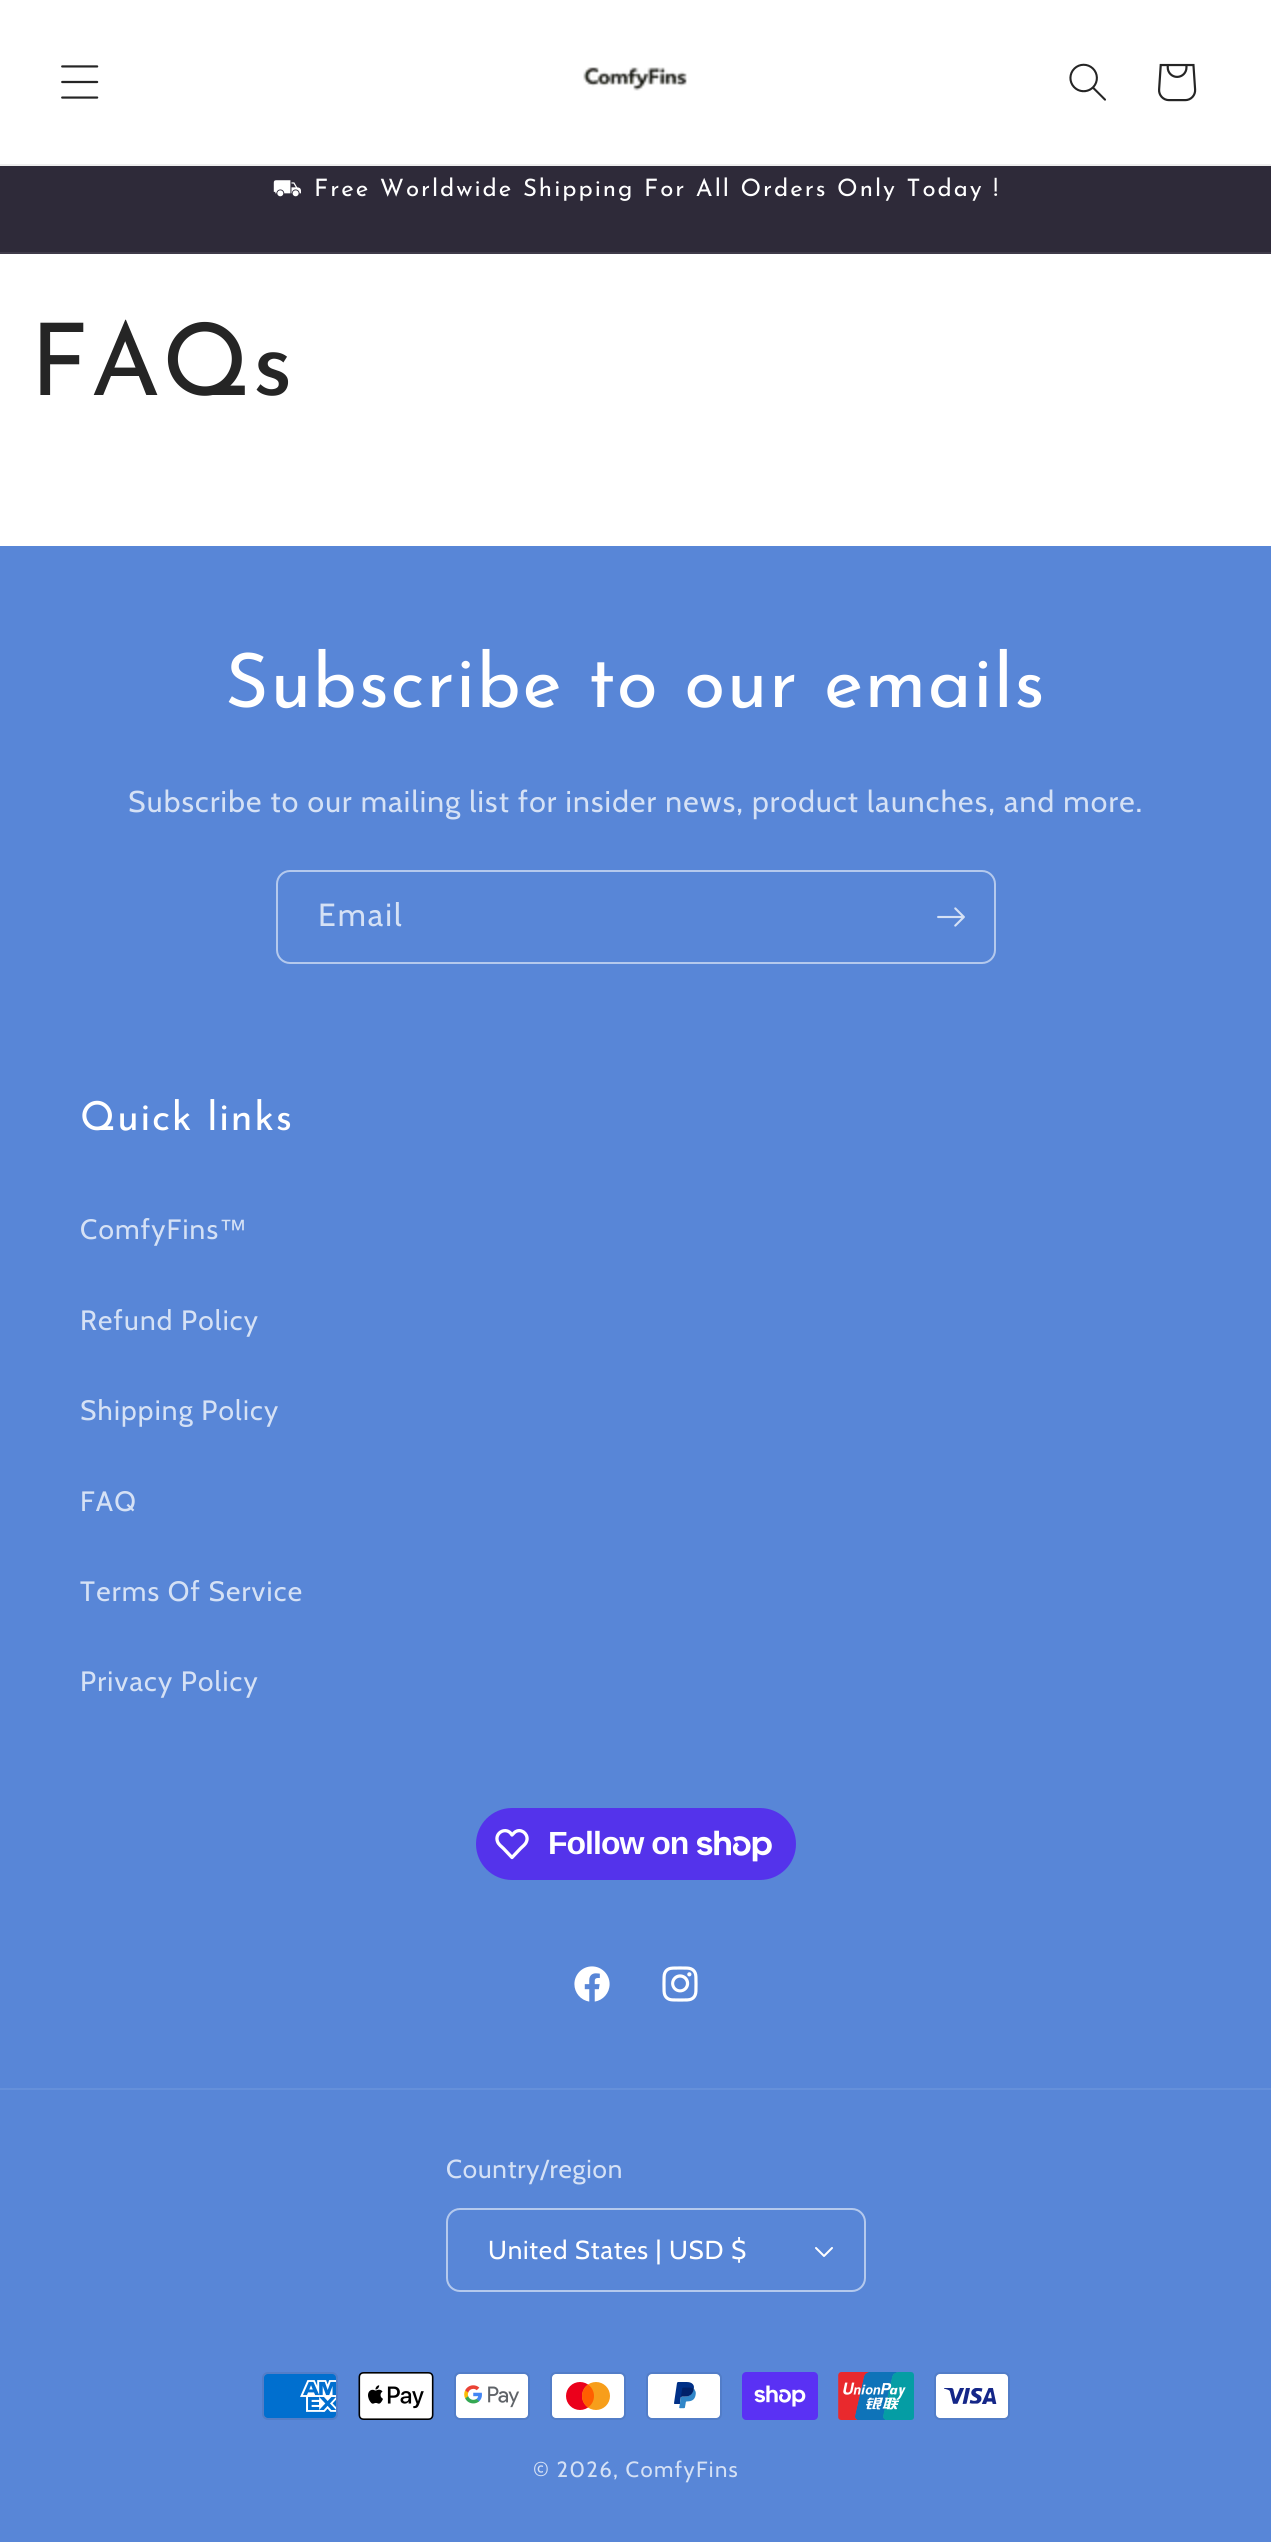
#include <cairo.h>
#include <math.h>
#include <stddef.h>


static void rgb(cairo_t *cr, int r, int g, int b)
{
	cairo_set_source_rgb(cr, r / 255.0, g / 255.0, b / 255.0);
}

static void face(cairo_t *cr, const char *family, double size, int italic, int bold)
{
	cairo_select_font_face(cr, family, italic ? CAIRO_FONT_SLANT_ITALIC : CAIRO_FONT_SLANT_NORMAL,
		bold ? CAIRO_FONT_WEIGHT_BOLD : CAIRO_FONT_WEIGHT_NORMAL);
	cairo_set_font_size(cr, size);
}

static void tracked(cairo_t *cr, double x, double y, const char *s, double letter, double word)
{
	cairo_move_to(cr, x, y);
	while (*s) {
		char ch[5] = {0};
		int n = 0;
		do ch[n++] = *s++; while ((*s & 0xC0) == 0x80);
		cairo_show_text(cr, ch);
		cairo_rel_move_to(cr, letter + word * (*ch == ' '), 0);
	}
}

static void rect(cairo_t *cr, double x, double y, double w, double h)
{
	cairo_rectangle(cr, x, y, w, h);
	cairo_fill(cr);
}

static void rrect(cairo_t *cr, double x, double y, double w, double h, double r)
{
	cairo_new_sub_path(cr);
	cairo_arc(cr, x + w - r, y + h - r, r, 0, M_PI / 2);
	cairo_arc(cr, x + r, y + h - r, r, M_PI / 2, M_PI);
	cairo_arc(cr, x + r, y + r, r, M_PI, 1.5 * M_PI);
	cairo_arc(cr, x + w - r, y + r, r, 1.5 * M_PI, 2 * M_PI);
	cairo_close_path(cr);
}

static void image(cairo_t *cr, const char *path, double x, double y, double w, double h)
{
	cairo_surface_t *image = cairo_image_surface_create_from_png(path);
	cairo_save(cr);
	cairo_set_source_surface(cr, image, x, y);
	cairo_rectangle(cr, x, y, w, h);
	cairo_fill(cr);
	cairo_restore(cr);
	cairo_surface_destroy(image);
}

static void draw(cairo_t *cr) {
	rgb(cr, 255, 255, 255);
	cairo_paint(cr);
	rgb(cr, 238, 238, 238);
	rect(cr, 0, 164, 1271, 2);
	image(cr, "image0.png", 61, 65, 38, 34);
	image(cr, "image1.png", 583, 67, 104, 24);
	image(cr, "image2.png", 1069, 63, 37, 38);
	image(cr, "image3.png", 1158, 63, 39, 39);
	rgb(cr, 46, 42, 57);
	rect(cr, 0, 166, 1271, 86);
	rgb(cr, 63, 59, 73);
	rect(cr, 0, 252, 1271, 2);
	face(cr, "STIX Two Math", 24, 0, 0);
	rgb(cr, 255, 255, 255);
	tracked(cr, 272, 196, "⛟", 2, 0);
	face(cr, "Josefin Sans", 24, 0, 0);
	tracked(cr, 314, 196, "Free Worldwide Shipping For All Orders Only Today !", 2, 0);
	face(cr, "Josefin Sans", 100, 0, 0);
	rgb(cr, 37, 37, 37);
	tracked(cr, 30, 395, "FAQs", 1.5, 0);
	rgb(cr, 88, 134, 215);
	rect(cr, 0, 546, 1271, 1996);
	face(cr, "Josefin Sans", 75, 0, 0);
	rgb(cr, 255, 255, 255);
	tracked(cr, 225, 707, "Subscribe to our emails", 1.5, 0);
	face(cr, "Cabin", 30, 0, 0);
	rgb(cr, 213, 225, 245);
	tracked(cr, 128, 812, "Subscribe to our mailing list for insider news, product launches, and more.", 1.2, 0);
	rrect(cr, 277, 871, 718, 92, 13);
	rgb(cr, 180, 201, 237);
	cairo_stroke(cr);
	face(cr, "Cabin", 32, 0, 0);
	rgb(cr, 213, 225, 245);
	tracked(cr, 318, 926, "Email", 2, 0);
	image(cr, "image4.png", 937, 907, 28, 20);
	face(cr, "Josefin Sans", 40, 0, 0);
	rgb(cr, 255, 255, 255);
	tracked(cr, 80, 1130, "Quick links", 1.5, 0);
	face(cr, "Cabin", 28, 0, 0);
	rgb(cr, 213, 225, 245);
	tracked(cr, 80, 1239, "ComfyFins", 1.2, 0);
	face(cr, "Liberation Sans", 28, 0, 0);
	tracked(cr, 219, 1239, "™", 1.2, 0);
	face(cr, "Cabin", 28, 0, 0);
	tracked(cr, 80, 1330, "Refund Policy", 1.2, 0);
	tracked(cr, 80, 1420, "Shipping Policy", 1.2, 0);
	tracked(cr, 80, 1511, "FAQ", 1.2, 0);
	tracked(cr, 80, 1601, "Terms Of Service", 1.2, 0);
	tracked(cr, 80, 1691, "Privacy Policy", 1.2, 0);
	rgb(cr, 84, 51, 235);
	rrect(cr, 476, 1808, 320, 72, 36);
	cairo_fill(cr);
	cairo_new_path(cr);
	cairo_move_to(cr, 510.5, 1833);
	cairo_line_to(cr, 512, 1835);
	cairo_curve_to(cr, 513.5, 1833.5, 515, 1831.5, 517, 1831);
	cairo_curve_to(cr, 523, 1829, 529, 1835.5, 526.5, 1841.5);
	cairo_curve_to(cr, 525.5, 1844.5, 522.5, 1846.5, 520.5, 1848.5);
	cairo_line_to(cr, 512, 1857.5);
	cairo_line_to(cr, 503.5, 1848.5);
	cairo_curve_to(cr, 501.5, 1846.5, 498.5, 1844.5, 497.5, 1841.5);
	cairo_curve_to(cr, 494.5, 1833.5, 504.5, 1827, 510.5, 1833);
	cairo_close_path(cr);
	rgb(cr, 255, 255, 255);
	cairo_set_line_width(cr, 3.3);
	cairo_set_line_join(cr, CAIRO_LINE_JOIN_ROUND);
	cairo_stroke(cr);
	face(cr, "Liberation Sans", 32, 0, 1);
	tracked(cr, 548, 1854, "Follow on", -1, 0);
	image(cr, "image5.png", 697, 1830, 75, 32);
	image(cr, "image6.png", 574, 1966, 36, 36);
	image(cr, "image7.png", 662, 1966, 36, 36);
	rgb(cr, 101, 144, 218);
	rect(cr, 0, 2088, 1271, 2);
	face(cr, "Cabin", 26, 0, 0);
	rgb(cr, 213, 225, 245);
	tracked(cr, 446, 2178, "Country/region", 0.8, 0);
	image(cr, "image8.png", 815, 2247, 18, 10);
	rrect(cr, 447, 2209, 418, 82, 13);
	rgb(cr, 180, 201, 237);
	cairo_set_line_width(cr, 2);
	cairo_set_line_join(cr, CAIRO_LINE_JOIN_MITER);
	cairo_stroke(cr);
	rgb(cr, 255, 255, 255);
	tracked(cr, 488, 2259, "United States | USD $", 0.8, 0);
	image(cr, "image9.png", 262, 2372, 76, 48);
	image(cr, "image10.png", 358, 2372, 76, 48);
	image(cr, "image11.png", 454, 2372, 76, 48);
	image(cr, "image12.png", 550, 2372, 76, 48);
	image(cr, "image13.png", 646, 2372, 76, 48);
	image(cr, "image14.png", 742, 2372, 76, 48);
	image(cr, "image15.png", 838, 2372, 76, 48);
	image(cr, "image16.png", 934, 2372, 76, 48);
	face(cr, "Cabin", 22, 0, 0);
	rgb(cr, 213, 225, 245);
	tracked(cr, 533, 2477, "© 2026, ComfyFins", 1.4, 0);
}

int main(void) {
	cairo_surface_t *surface = cairo_image_surface_create(CAIRO_FORMAT_RGB24, 1271, 2542);
	cairo_t *cr = cairo_create(surface);
	cairo_font_options_t *options = cairo_font_options_create();
	cairo_font_options_set_hint_metrics(options, CAIRO_HINT_METRICS_OFF);
	cairo_font_options_set_hint_style(options, CAIRO_HINT_STYLE_NONE);
	cairo_set_font_options(cr, options);
	cairo_set_miter_limit(cr, 4);
	draw(cr);
	cairo_surface_write_to_png(surface, "render.png");
	cairo_font_options_destroy(options);
	cairo_destroy(cr);
	cairo_surface_destroy(surface);
	return 0;
}
